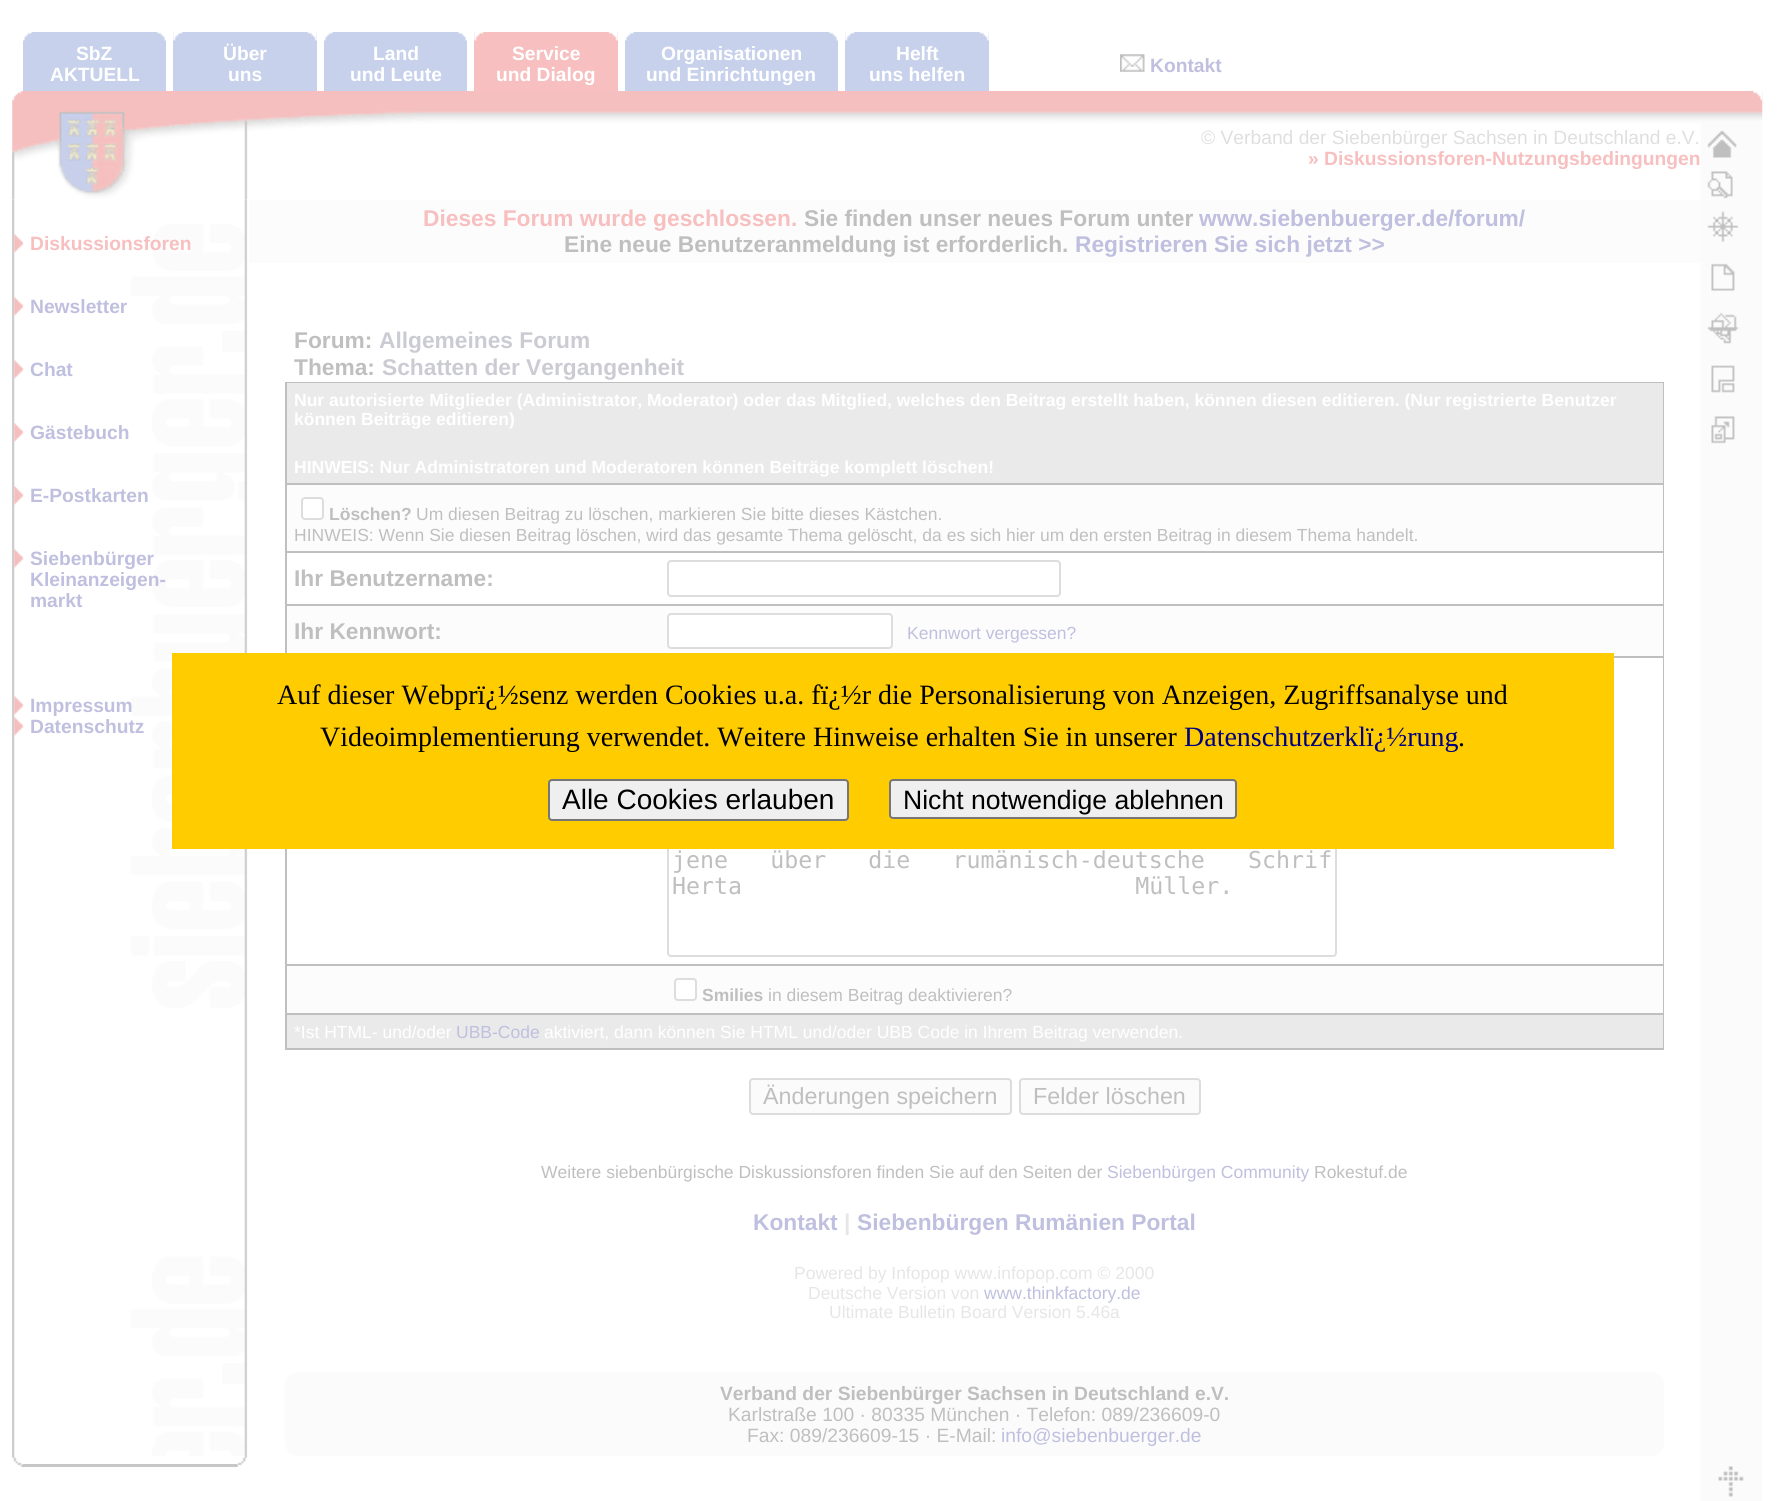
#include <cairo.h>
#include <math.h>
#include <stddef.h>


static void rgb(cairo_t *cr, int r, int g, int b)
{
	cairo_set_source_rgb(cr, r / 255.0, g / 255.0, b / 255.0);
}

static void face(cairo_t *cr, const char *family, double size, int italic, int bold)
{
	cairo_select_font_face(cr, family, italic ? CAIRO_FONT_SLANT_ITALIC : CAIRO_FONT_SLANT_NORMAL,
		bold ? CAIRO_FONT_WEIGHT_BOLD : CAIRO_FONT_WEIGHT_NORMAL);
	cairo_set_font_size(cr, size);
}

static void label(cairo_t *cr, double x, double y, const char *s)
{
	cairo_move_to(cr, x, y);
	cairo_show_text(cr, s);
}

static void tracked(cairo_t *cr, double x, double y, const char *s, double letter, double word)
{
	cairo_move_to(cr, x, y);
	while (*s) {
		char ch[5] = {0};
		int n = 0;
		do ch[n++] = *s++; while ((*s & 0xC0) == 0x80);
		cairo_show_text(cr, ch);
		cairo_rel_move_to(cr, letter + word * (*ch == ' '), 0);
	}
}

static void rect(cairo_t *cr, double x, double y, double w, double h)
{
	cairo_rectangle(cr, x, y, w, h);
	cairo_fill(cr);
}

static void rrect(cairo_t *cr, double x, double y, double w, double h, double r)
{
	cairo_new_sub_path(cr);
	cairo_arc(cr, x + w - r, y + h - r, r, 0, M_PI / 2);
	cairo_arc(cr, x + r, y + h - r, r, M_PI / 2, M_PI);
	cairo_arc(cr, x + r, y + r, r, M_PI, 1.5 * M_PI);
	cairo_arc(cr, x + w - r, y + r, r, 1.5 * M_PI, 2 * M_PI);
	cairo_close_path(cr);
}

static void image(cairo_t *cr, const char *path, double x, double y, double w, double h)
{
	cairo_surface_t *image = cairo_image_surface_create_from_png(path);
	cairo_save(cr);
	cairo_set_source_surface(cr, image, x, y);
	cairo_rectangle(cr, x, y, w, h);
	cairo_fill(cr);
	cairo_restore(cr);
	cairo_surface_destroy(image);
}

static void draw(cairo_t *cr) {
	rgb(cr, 255, 255, 255);
	cairo_paint(cr);
	rgb(cr, 199, 209, 235);
	rect(cr, 23, 32, 143, 59);
	image(cr, "image0.png", 23, 32, 9, 9);
	image(cr, "image1.png", 157, 32, 9, 9);
	face(cr, "Liberation Sans", 19.25, 0, 1);
	rgb(cr, 255, 255, 255);
	label(cr, 76, 60, "SbZ");
	label(cr, 50, 81, "AKTUELL");
	rgb(cr, 199, 209, 235);
	rect(cr, 173, 32, 144, 59);
	image(cr, "image2.png", 173, 32, 10, 9);
	image(cr, "image3.png", 307, 32, 10, 9);
	rgb(cr, 255, 255, 255);
	label(cr, 223, 60, "Über");
	label(cr, 228, 81, "uns");
	rgb(cr, 199, 209, 235);
	rect(cr, 324, 32, 143, 59);
	image(cr, "image4.png", 324, 32, 9, 9);
	image(cr, "image5.png", 458, 32, 9, 9);
	rgb(cr, 255, 255, 255);
	label(cr, 373, 60, "Land");
	label(cr, 350, 81, "und Leute");
	rgb(cr, 247, 191, 191);
	rect(cr, 474, 32, 144, 59);
	image(cr, "image6.png", 474, 32, 10, 9);
	image(cr, "image7.png", 608, 32, 10, 9);
	rgb(cr, 255, 255, 255);
	label(cr, 512, 60, "Service");
	label(cr, 496, 81, "und Dialog");
	rgb(cr, 199, 209, 235);
	rect(cr, 625, 32, 213, 59);
	image(cr, "image4.png", 625, 32, 9, 9);
	image(cr, "image1.png", 829, 32, 9, 9);
	rgb(cr, 255, 255, 255);
	label(cr, 661, 60, "Organisationen");
	label(cr, 646, 81, "und Einrichtungen");
	rgb(cr, 199, 209, 235);
	rect(cr, 845, 32, 144, 59);
	image(cr, "image8.png", 845, 32, 10, 9);
	image(cr, "image3.png", 979, 32, 10, 9);
	rgb(cr, 255, 255, 255);
	label(cr, 896, 60, "Helft");
	label(cr, 869, 81, "uns helfen");
	image(cr, "image9.png", 1120, 54, 25, 18);
	rgb(cr, 191, 191, 223);
	label(cr, 1150, 72, "Kontakt");
	image(cr, "image10.png", 12, 91, 415, 109);
	image(cr, "image11.png", 427, 91, 1274, 33);
	face(cr, "Liberation Sans", 19.25, 0, 0);
	rgb(cr, 223, 223, 223);
	label(cr, 1201, 144, "© Verband der Siebenbürger Sachsen in Deutschland e.V.");
	face(cr, "Liberation Sans", 19.25, 0, 1);
	rgb(cr, 247, 191, 191);
	label(cr, 1308, 165, "» Diskussionsforen-Nutzungsbedingungen");
	image(cr, "image12.png", 1701, 91, 62, 109);
	image(cr, "image13.png", 1753, 91, 10, 10);
	image(cr, "image14.png", 1707, 130, 30, 28);
	image(cr, "image15.png", 1707, 171, 26, 28);
	image(cr, "image16.png", 12, 199, 236, 1257);
	image(cr, "image17.png", 13, 234, 11, 19);
	label(cr, 30, 250, "Diskussionsforen");
	image(cr, "image17.png", 13, 297, 11, 19);
	rgb(cr, 191, 191, 223);
	label(cr, 30, 313, "Newsletter");
	image(cr, "image17.png", 13, 360, 11, 19);
	label(cr, 30, 376, "Chat");
	image(cr, "image17.png", 13, 423, 11, 19);
	label(cr, 30, 439, "Gästebuch");
	image(cr, "image17.png", 13, 486, 11, 19);
	label(cr, 30, 502, "E-Postkarten");
	image(cr, "image17.png", 13, 549, 11, 19);
	label(cr, 30, 565, "Siebenbürger");
	label(cr, 30, 586, "Kleinanzeigen-");
	label(cr, 30, 607, "markt");
	image(cr, "image17.png", 13, 696, 11, 19);
	label(cr, 30, 712, "Impressum");
	image(cr, "image17.png", 13, 717, 11, 19);
	label(cr, 30, 733, "Datenschutz");
	rgb(cr, 252, 252, 252);
	rect(cr, 249, 200, 1452, 63);
	face(cr, "Liberation Sans", 22.75, 0, 1);
	rgb(cr, 247, 191, 191);
	label(cr, 423, 226, "Dieses Forum wurde geschlossen.");
	rgb(cr, 191, 191, 191);
	label(cr, 804, 226, "Sie finden unser neues Forum unter");
	rgb(cr, 191, 191, 223);
	label(cr, 1199, 226, "www.siebenbuerger.de/forum/");
	rgb(cr, 191, 191, 191);
	label(cr, 564, 252, "Eine neue Benutzeranmeldung ist erforderlich.");
	rgb(cr, 191, 191, 223);
	label(cr, 1075, 252, "Registrieren Sie sich jetzt >>");
	rgb(cr, 191, 191, 191);
	label(cr, 294, 348, "Forum:");
	rgb(cr, 203, 203, 211);
	label(cr, 379, 348, "Allgemeines Forum");
	rgb(cr, 191, 191, 191);
	label(cr, 294, 375, "Thema:");
	rgb(cr, 203, 203, 211);
	label(cr, 382, 375, "Schatten der Vergangenheit");
	rgb(cr, 191, 191, 191);
	rect(cr, 285, 382, 1379, 668);
	rgb(cr, 234, 234, 234);
	rect(cr, 287, 383, 1376, 100);
	face(cr, "Liberation Sans", 17.5, 0, 1);
	rgb(cr, 255, 255, 255);
	label(cr, 294, 406, "Nur autorisierte Mitglieder (Administrator, Moderator) oder das Mitglied, welches den Beitrag erstellt haben, können diesen editieren. (Nur registrierte Benutzer");
	label(cr, 294, 425, "können Beiträge editieren)");
	label(cr, 294, 473, "HINWEIS: Nur Administratoren und Moderatoren können Beiträge komplett löschen!");
	rgb(cr, 252, 252, 252);
	rect(cr, 287, 485, 1376, 66);
	rgb(cr, 255, 255, 255);
	rrect(cr, 302, 498, 21, 21, 3);
	cairo_fill_preserve(cr);
	rgb(cr, 221, 221, 221);
	cairo_stroke(cr);
	rgb(cr, 191, 191, 191);
	label(cr, 329, 520, "Löschen?");
	face(cr, "Liberation Sans", 17.5, 0, 0);
	label(cr, 416, 520, "Um diesen Beitrag zu löschen, markieren Sie bitte dieses Kästchen.");
	label(cr, 294, 541, "HINWEIS: Wenn Sie diesen Beitrag löschen, wird das gesamte Thema gelöscht, da es sich hier um den ersten Beitrag in diesem Thema handelt.");
	rgb(cr, 255, 255, 255);
	rect(cr, 287, 553, 1376, 51);
	face(cr, "Liberation Sans", 22.75, 0, 1);
	rgb(cr, 191, 191, 191);
	label(cr, 294, 586, "Ihr Benutzername:");
	rrect(cr, 668, 561, 392, 35, 3);
	rgb(cr, 221, 221, 221);
	cairo_stroke(cr);
	rgb(cr, 252, 252, 252);
	rect(cr, 287, 606, 1376, 50);
	rgb(cr, 191, 191, 191);
	label(cr, 294, 639, "Ihr Kennwort:");
	rgb(cr, 255, 255, 255);
	rrect(cr, 668, 614, 224, 34, 3);
	cairo_fill_preserve(cr);
	rgb(cr, 221, 221, 221);
	cairo_stroke(cr);
	face(cr, "Liberation Sans", 17.5, 0, 0);
	rgb(cr, 191, 191, 223);
	label(cr, 907, 639, "Kennwort vergessen?");
	rgb(cr, 255, 255, 255);
	rect(cr, 287, 658, 1376, 306);
	rrect(cr, 668, 685, 668, 271, 3);
	rgb(cr, 221, 221, 221);
	cairo_stroke(cr);
	face(cr, "DejaVu Sans Mono", 23.3, 0, 0);
	rgb(cr, 191, 191, 191);
	tracked(cr, 672, 868, "jene über die rumänisch-deutsche", 0, 28);
	label(cr, 1248, 868, "Schrif");
	tracked(cr, 672, 894, "Herta Müller.", 0, 379);
	rgb(cr, 252, 252, 252);
	rect(cr, 287, 966, 1376, 47);
	rgb(cr, 255, 255, 255);
	rrect(cr, 675, 979, 21, 21, 3);
	cairo_fill_preserve(cr);
	rgb(cr, 221, 221, 221);
	cairo_stroke(cr);
	face(cr, "Liberation Sans", 17.5, 0, 1);
	rgb(cr, 191, 191, 191);
	label(cr, 702, 1001, "Smilies");
	face(cr, "Liberation Sans", 17.5, 0, 0);
	label(cr, 768, 1001, "in diesem Beitrag deaktivieren?");
	rgb(cr, 234, 234, 234);
	rect(cr, 287, 1015, 1376, 33);
	rgb(cr, 255, 255, 255);
	label(cr, 294, 1038, "*Ist HTML- und/oder");
	rgb(cr, 191, 191, 223);
	label(cr, 456, 1038, "UBB-Code");
	rgb(cr, 255, 255, 255);
	label(cr, 544, 1038, "aktiviert, dann können Sie HTML und/oder UBB Code in Ihrem Beitrag verwenden.");
	rgb(cr, 251, 251, 251);
	rrect(cr, 750, 1079, 261, 35, 3);
	cairo_fill_preserve(cr);
	rgb(cr, 221, 221, 221);
	cairo_stroke(cr);
	face(cr, "Liberation Sans", 23.3, 0, 0);
	rgb(cr, 191, 191, 191);
	label(cr, 763, 1104, "Änderungen speichern");
	rgb(cr, 251, 251, 251);
	rrect(cr, 1020, 1079, 180, 35, 3);
	cairo_fill_preserve(cr);
	rgb(cr, 221, 221, 221);
	cairo_stroke(cr);
	rgb(cr, 191, 191, 191);
	label(cr, 1033, 1104, "Felder löschen");
	face(cr, "Liberation Sans", 17.5, 0, 0);
	label(cr, 541, 1178, "Weitere siebenbürgische Diskussionsforen finden Sie auf den Seiten der");
	rgb(cr, 191, 191, 223);
	label(cr, 1107, 1178, "Siebenbürgen Community");
	rgb(cr, 191, 191, 191);
	label(cr, 1314, 1178, "Rokestuf.de");
	face(cr, "Liberation Sans", 22.75, 0, 1);
	rgb(cr, 191, 191, 223);
	label(cr, 753, 1230, "Kontakt");
	rgb(cr, 230, 230, 230);
	label(cr, 844, 1230, "|");
	rgb(cr, 191, 191, 223);
	label(cr, 857, 1230, "Siebenbürgen Rumänien Portal");
	face(cr, "Liberation Sans", 17.5, 0, 0);
	rgb(cr, 230, 230, 230);
	label(cr, 794, 1279, "Powered by Infopop www.infopop.com © 2000");
	label(cr, 808, 1299, "Deutsche Version von");
	rgb(cr, 191, 191, 223);
	label(cr, 984, 1299, "www.thinkfactory.de");
	rgb(cr, 230, 230, 230);
	label(cr, 829, 1318, "Ultimate Bulletin Board Version 5.46a");
	rgb(cr, 251, 251, 251);
	rect(cr, 285, 1372, 1379, 84);
	image(cr, "image18.png", 285, 1372, 10, 9);
	image(cr, "image19.png", 285, 1447, 10, 9);
	face(cr, "Liberation Sans", 19.25, 0, 1);
	rgb(cr, 191, 191, 191);
	label(cr, 720, 1400, "Verband der Siebenbürger Sachsen in Deutschland e.V.");
	face(cr, "Liberation Sans", 19.25, 0, 0);
	label(cr, 728, 1421, "Karlstraße 100 · 80335 München · Telefon: 089/236609-0");
	label(cr, 747, 1442, "Fax: 089/236609-15 · E-Mail:");
	rgb(cr, 191, 191, 223);
	label(cr, 1001, 1442, "info@siebenbuerger.de");
	image(cr, "image20.png", 1655, 1372, 9, 9);
	image(cr, "image21.png", 1655, 1447, 9, 9);
	rgb(cr, 251, 251, 251);
	rect(cr, 1701, 200, 61, 1301);
	image(cr, "image22.png", 1707, 211, 32, 31);
	image(cr, "image23.png", 1711, 263, 24, 28);
	image(cr, "image24.png", 1707, 312, 32, 32);
	image(cr, "image25.png", 1711, 365, 24, 28);
	image(cr, "image26.png", 1711, 416, 24, 28);
	rgb(cr, 255, 204, 0);
	rect(cr, 172, 653, 1442, 196);
	face(cr, "Liberation Serif", 28, 0, 0);
	rgb(cr, 0, 0, 0);
	label(cr, 277, 704, "Auf dieser Webprï¿½senz werden Cookies u.a. fï¿½r die Personalisierung von Anzeigen, Zugriffsanalyse und");
	label(cr, 320, 746, "Videoimplementierung verwendet. Weitere Hinweise erhalten Sie in unserer");
	rgb(cr, 0, 0, 128);
	label(cr, 1184, 746, "Datenschutzerklï¿½rung");
	rgb(cr, 0, 0, 0);
	label(cr, 1458, 746, ".");
	rgb(cr, 239, 239, 239);
	rrect(cr, 549, 780, 299, 40, 3);
	cairo_fill_preserve(cr);
	rgb(cr, 118, 118, 118);
	cairo_stroke(cr);
	face(cr, "Liberation Sans", 28, 0, 0);
	rgb(cr, 0, 0, 0);
	label(cr, 562, 809, "Alle Cookies erlauben");
	rgb(cr, 239, 239, 239);
	rrect(cr, 890, 780, 346, 38, 3);
	cairo_fill_preserve(cr);
	rgb(cr, 118, 118, 118);
	cairo_stroke(cr);
	face(cr, "Liberation Sans", 26.6, 0, 0);
	rgb(cr, 0, 0, 0);
	label(cr, 903, 809, "Nicht notwendige ablehnen");
	rgb(cr, 199, 199, 199);
	rect(cr, 22, 1464, 215, 3);
	image(cr, "image27.png", 12, 1456, 11, 11);
	image(cr, "image28.png", 236, 1456, 11, 11);
	image(cr, "image29.png", 1718, 1466, 26, 31);
}

int main(void) {
	cairo_surface_t *surface = cairo_image_surface_create(CAIRO_FORMAT_RGB24, 1785, 1501);
	cairo_t *cr = cairo_create(surface);
	cairo_font_options_t *options = cairo_font_options_create();
	cairo_font_options_set_hint_metrics(options, CAIRO_HINT_METRICS_OFF);
	cairo_font_options_set_hint_style(options, CAIRO_HINT_STYLE_NONE);
	cairo_set_font_options(cr, options);
	cairo_set_miter_limit(cr, 4);
	draw(cr);
	cairo_surface_write_to_png(surface, "render.png");
	cairo_font_options_destroy(options);
	cairo_destroy(cr);
	cairo_surface_destroy(surface);
	return 0;
}
